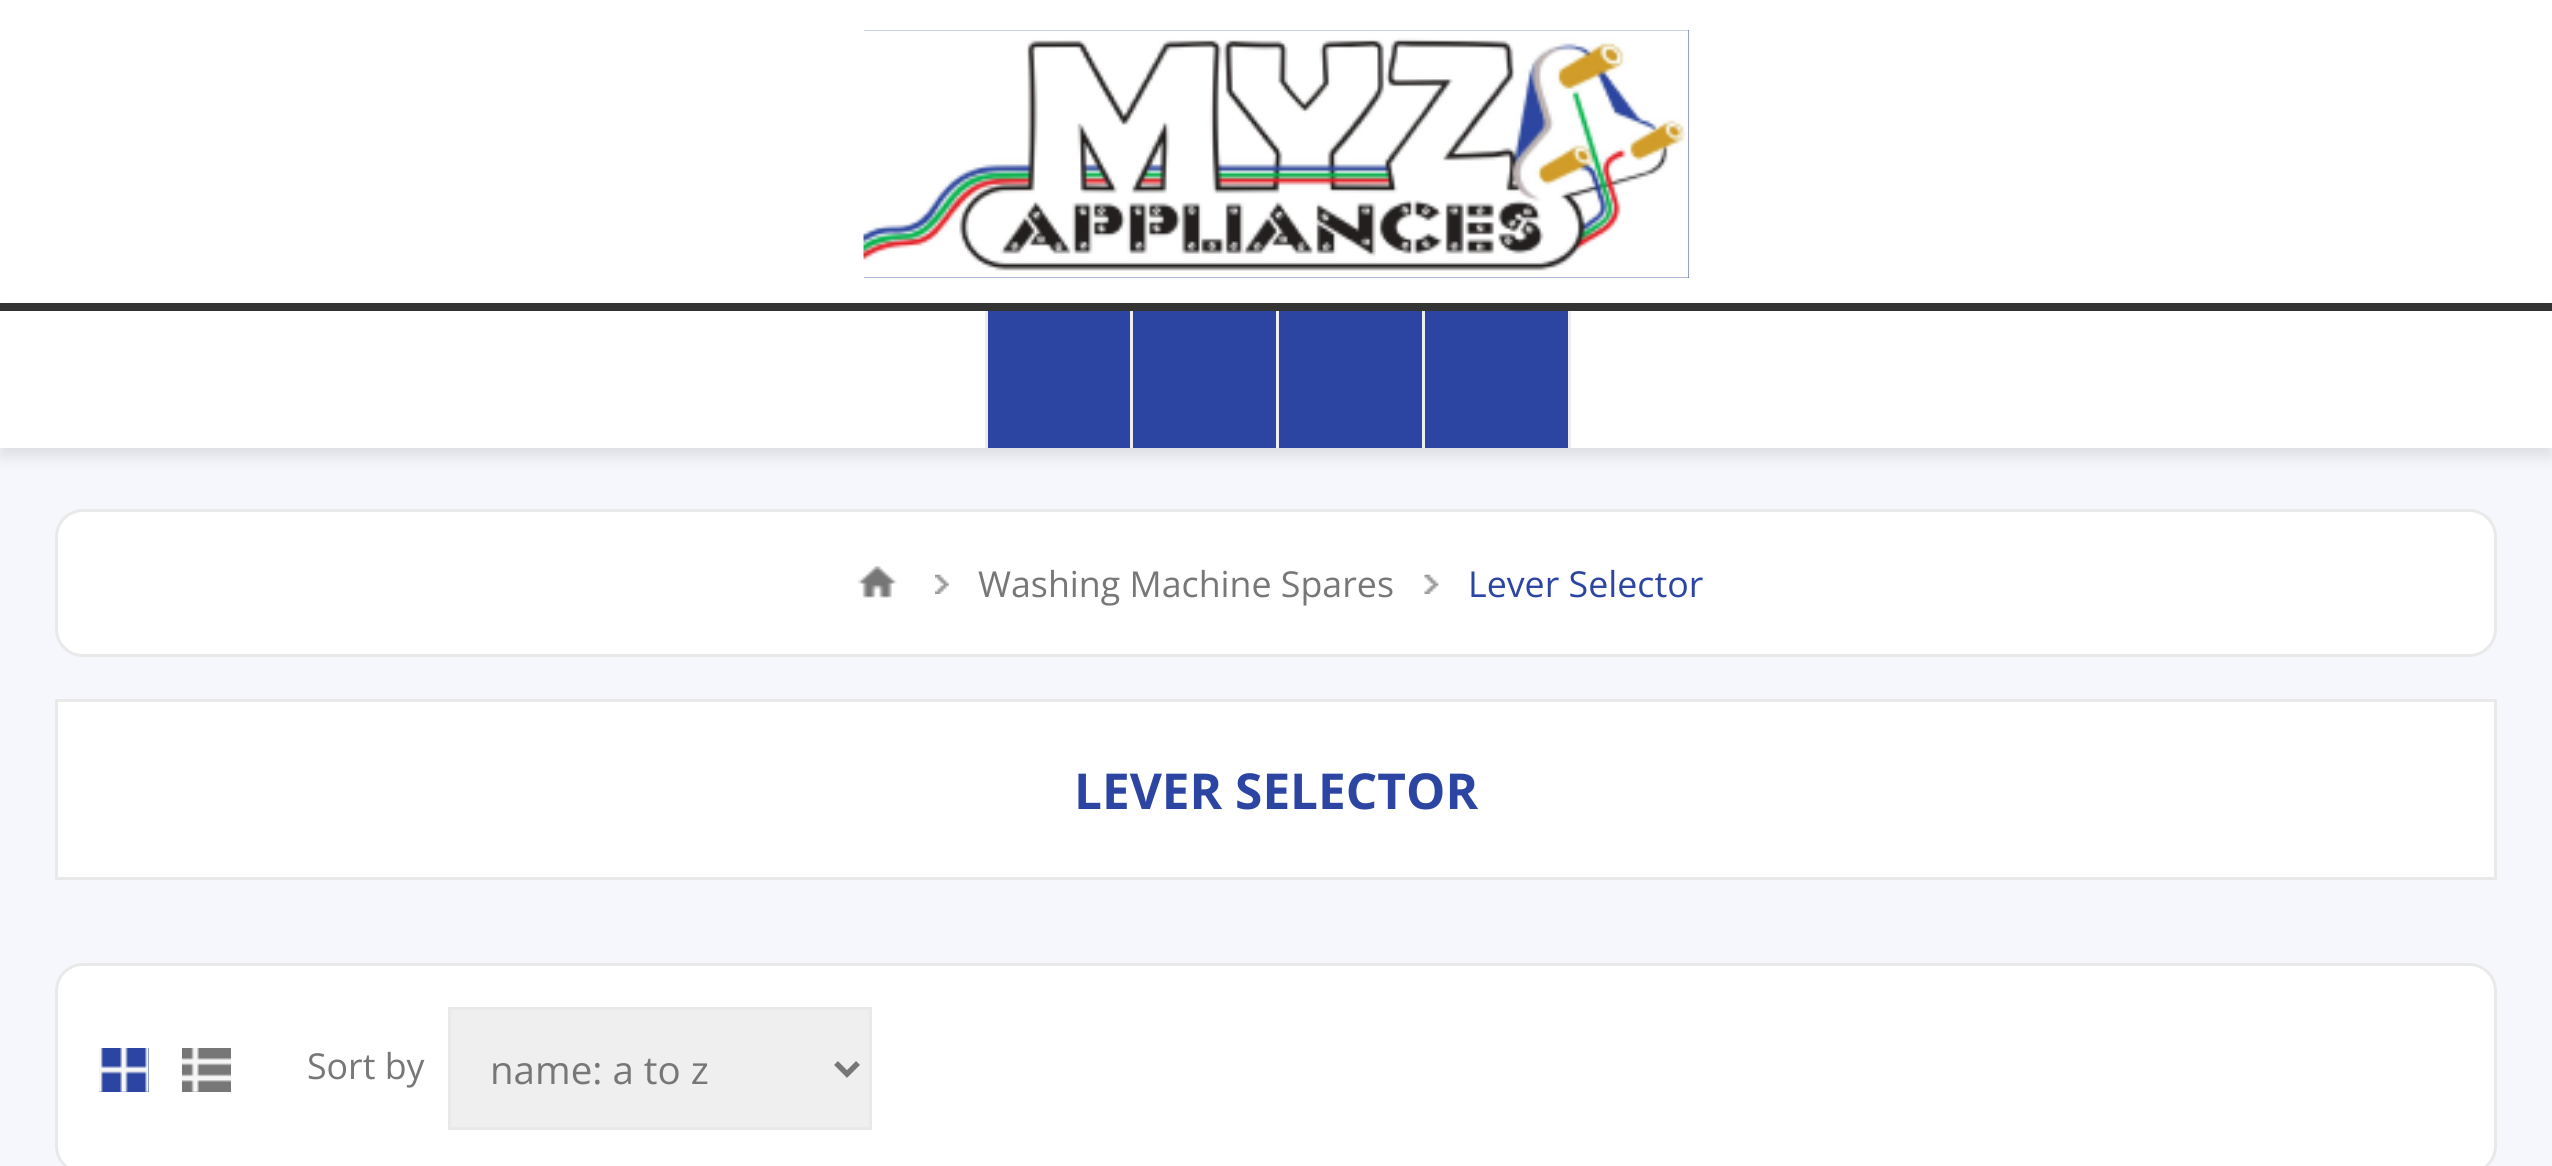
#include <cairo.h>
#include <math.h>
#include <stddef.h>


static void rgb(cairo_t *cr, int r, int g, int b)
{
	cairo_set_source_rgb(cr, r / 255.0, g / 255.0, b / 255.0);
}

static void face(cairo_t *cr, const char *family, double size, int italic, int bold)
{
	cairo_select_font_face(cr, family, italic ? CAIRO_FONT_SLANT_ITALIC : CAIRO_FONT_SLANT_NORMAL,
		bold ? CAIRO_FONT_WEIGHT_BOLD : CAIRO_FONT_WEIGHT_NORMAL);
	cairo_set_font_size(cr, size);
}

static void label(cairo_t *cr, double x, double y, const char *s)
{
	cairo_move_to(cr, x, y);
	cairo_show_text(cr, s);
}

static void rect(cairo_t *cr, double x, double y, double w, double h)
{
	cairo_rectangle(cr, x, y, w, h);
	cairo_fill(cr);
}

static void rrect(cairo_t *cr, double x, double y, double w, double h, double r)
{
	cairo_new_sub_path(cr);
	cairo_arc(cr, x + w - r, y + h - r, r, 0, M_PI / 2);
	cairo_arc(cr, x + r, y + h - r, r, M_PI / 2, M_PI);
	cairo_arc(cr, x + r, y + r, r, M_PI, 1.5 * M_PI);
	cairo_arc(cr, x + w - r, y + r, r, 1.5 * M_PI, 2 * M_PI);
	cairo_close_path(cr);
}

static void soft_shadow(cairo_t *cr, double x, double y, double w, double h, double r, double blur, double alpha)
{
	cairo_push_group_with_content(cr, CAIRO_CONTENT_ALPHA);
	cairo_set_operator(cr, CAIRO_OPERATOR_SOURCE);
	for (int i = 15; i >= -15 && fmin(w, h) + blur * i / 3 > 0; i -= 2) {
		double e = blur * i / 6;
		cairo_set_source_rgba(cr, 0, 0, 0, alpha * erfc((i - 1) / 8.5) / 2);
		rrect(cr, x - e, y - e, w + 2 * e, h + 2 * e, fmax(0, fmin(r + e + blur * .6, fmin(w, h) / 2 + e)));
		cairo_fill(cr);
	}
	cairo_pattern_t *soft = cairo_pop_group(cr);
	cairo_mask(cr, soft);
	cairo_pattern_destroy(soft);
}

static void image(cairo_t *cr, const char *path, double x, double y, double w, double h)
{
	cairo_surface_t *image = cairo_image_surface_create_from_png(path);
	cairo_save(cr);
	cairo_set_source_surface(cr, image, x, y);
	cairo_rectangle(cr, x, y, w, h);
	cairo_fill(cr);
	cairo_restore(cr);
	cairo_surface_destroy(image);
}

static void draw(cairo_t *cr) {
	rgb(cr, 245, 247, 253);
	cairo_paint(cr);
	rgb(cr, 255, 255, 255);
	rect(cr, 0, 0, 2552, 303);
	rgb(cr, 44, 69, 162);
	rect(cr, 864, 30, 825, 248);
	image(cr, "image0.png", 863, 30, 826, 248);
	rgb(cr, 0, 0, 0);
	soft_shadow(cr, 0, 311, 2552, 146, 0, 7, 0.1);
	rgb(cr, 255, 255, 255);
	rect(cr, 0, 311, 2552, 137);
	rgb(cr, 51, 51, 51);
	rect(cr, 0, 303, 2552, 8);
	rgb(cr, 44, 69, 162);
	rect(cr, 988, 311, 142, 137);
	rgb(cr, 238, 238, 238);
	rect(cr, 1130, 311, 3, 137);
	rect(cr, 985, 311, 3, 137);
	rgb(cr, 44, 69, 162);
	rect(cr, 1133, 311, 143, 137);
	rgb(cr, 238, 238, 238);
	rect(cr, 1276, 311, 3, 137);
	rgb(cr, 44, 69, 162);
	rect(cr, 1279, 311, 143, 137);
	rgb(cr, 238, 238, 238);
	rect(cr, 1422, 311, 3, 137);
	rgb(cr, 44, 69, 162);
	rect(cr, 1425, 311, 143, 137);
	rgb(cr, 238, 238, 238);
	rect(cr, 1568, 311, 3, 137);
	rgb(cr, 255, 255, 255);
	rrect(cr, 56.5, 510.5, 2439, 145, 26.5);
	cairo_fill_preserve(cr);
	rgb(cr, 233, 233, 233);
	cairo_set_line_width(cr, 3);
	cairo_stroke(cr);
	image(cr, "image1.png", 858, 566, 39, 32);
	image(cr, "image2.png", 935, 574, 14, 20);
	face(cr, "Open Sans", 35.75, 0, 0);
	rgb(cr, 119, 119, 119);
	label(cr, 978, 597, "Washing Machine Spares");
	image(cr, "image3.png", 1424, 574, 15, 20);
	rgb(cr, 44, 69, 162);
	label(cr, 1468, 597, "Lever Selector");
	rgb(cr, 255, 255, 255);
	cairo_rectangle(cr, 56.5, 700.5, 2439, 178);
	cairo_fill_preserve(cr);
	rgb(cr, 233, 233, 233);
	cairo_stroke(cr);
	face(cr, "Open Sans", 49.5, 0, 1);
	rgb(cr, 44, 69, 162);
	label(cr, 1074, 809, "LEVER SELECTOR");
	rgb(cr, 255, 255, 255);
	rrect(cr, 56.5, 964.5, 2439, 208, 26.5);
	cairo_fill_preserve(cr);
	rgb(cr, 233, 233, 233);
	cairo_stroke(cr);
	rgb(cr, 44, 69, 162);
	rect(cr, 99, 1048, 50, 44);
	image(cr, "image4.png", 99, 1048, 50, 44);
	rgb(cr, 119, 119, 119);
	rect(cr, 182, 1048, 49, 44);
	image(cr, "image5.png", 181, 1048, 50, 44);
	face(cr, "Open Sans", 35.75, 0, 0);
	label(cr, 307, 1079, "Sort by");
	rgb(cr, 239, 239, 239);
	cairo_rectangle(cr, 449.5, 1008.5, 421, 120);
	cairo_fill_preserve(cr);
	rgb(cr, 233, 233, 233);
	cairo_stroke(cr);
	cairo_new_path(cr);
	cairo_move_to(cr, 836, 1063);
	cairo_line_to(cr, 847, 1074);
	cairo_line_to(cr, 858, 1063);
	rgb(cr, 119, 119, 119);
	cairo_set_line_width(cr, 5.5);
	cairo_stroke(cr);
	face(cr, "Open Sans", 38.5, 0, 0);
	label(cr, 490, 1084, "name: a to z");
}

int main(void) {
	cairo_surface_t *surface = cairo_image_surface_create(CAIRO_FORMAT_RGB24, 2552, 1166);
	cairo_t *cr = cairo_create(surface);
	cairo_font_options_t *options = cairo_font_options_create();
	cairo_font_options_set_hint_metrics(options, CAIRO_HINT_METRICS_OFF);
	cairo_font_options_set_hint_style(options, CAIRO_HINT_STYLE_NONE);
	cairo_set_font_options(cr, options);
	cairo_set_miter_limit(cr, 4);
	draw(cr);
	cairo_surface_write_to_png(surface, "render.png");
	cairo_font_options_destroy(options);
	cairo_destroy(cr);
	cairo_surface_destroy(surface);
	return 0;
}
